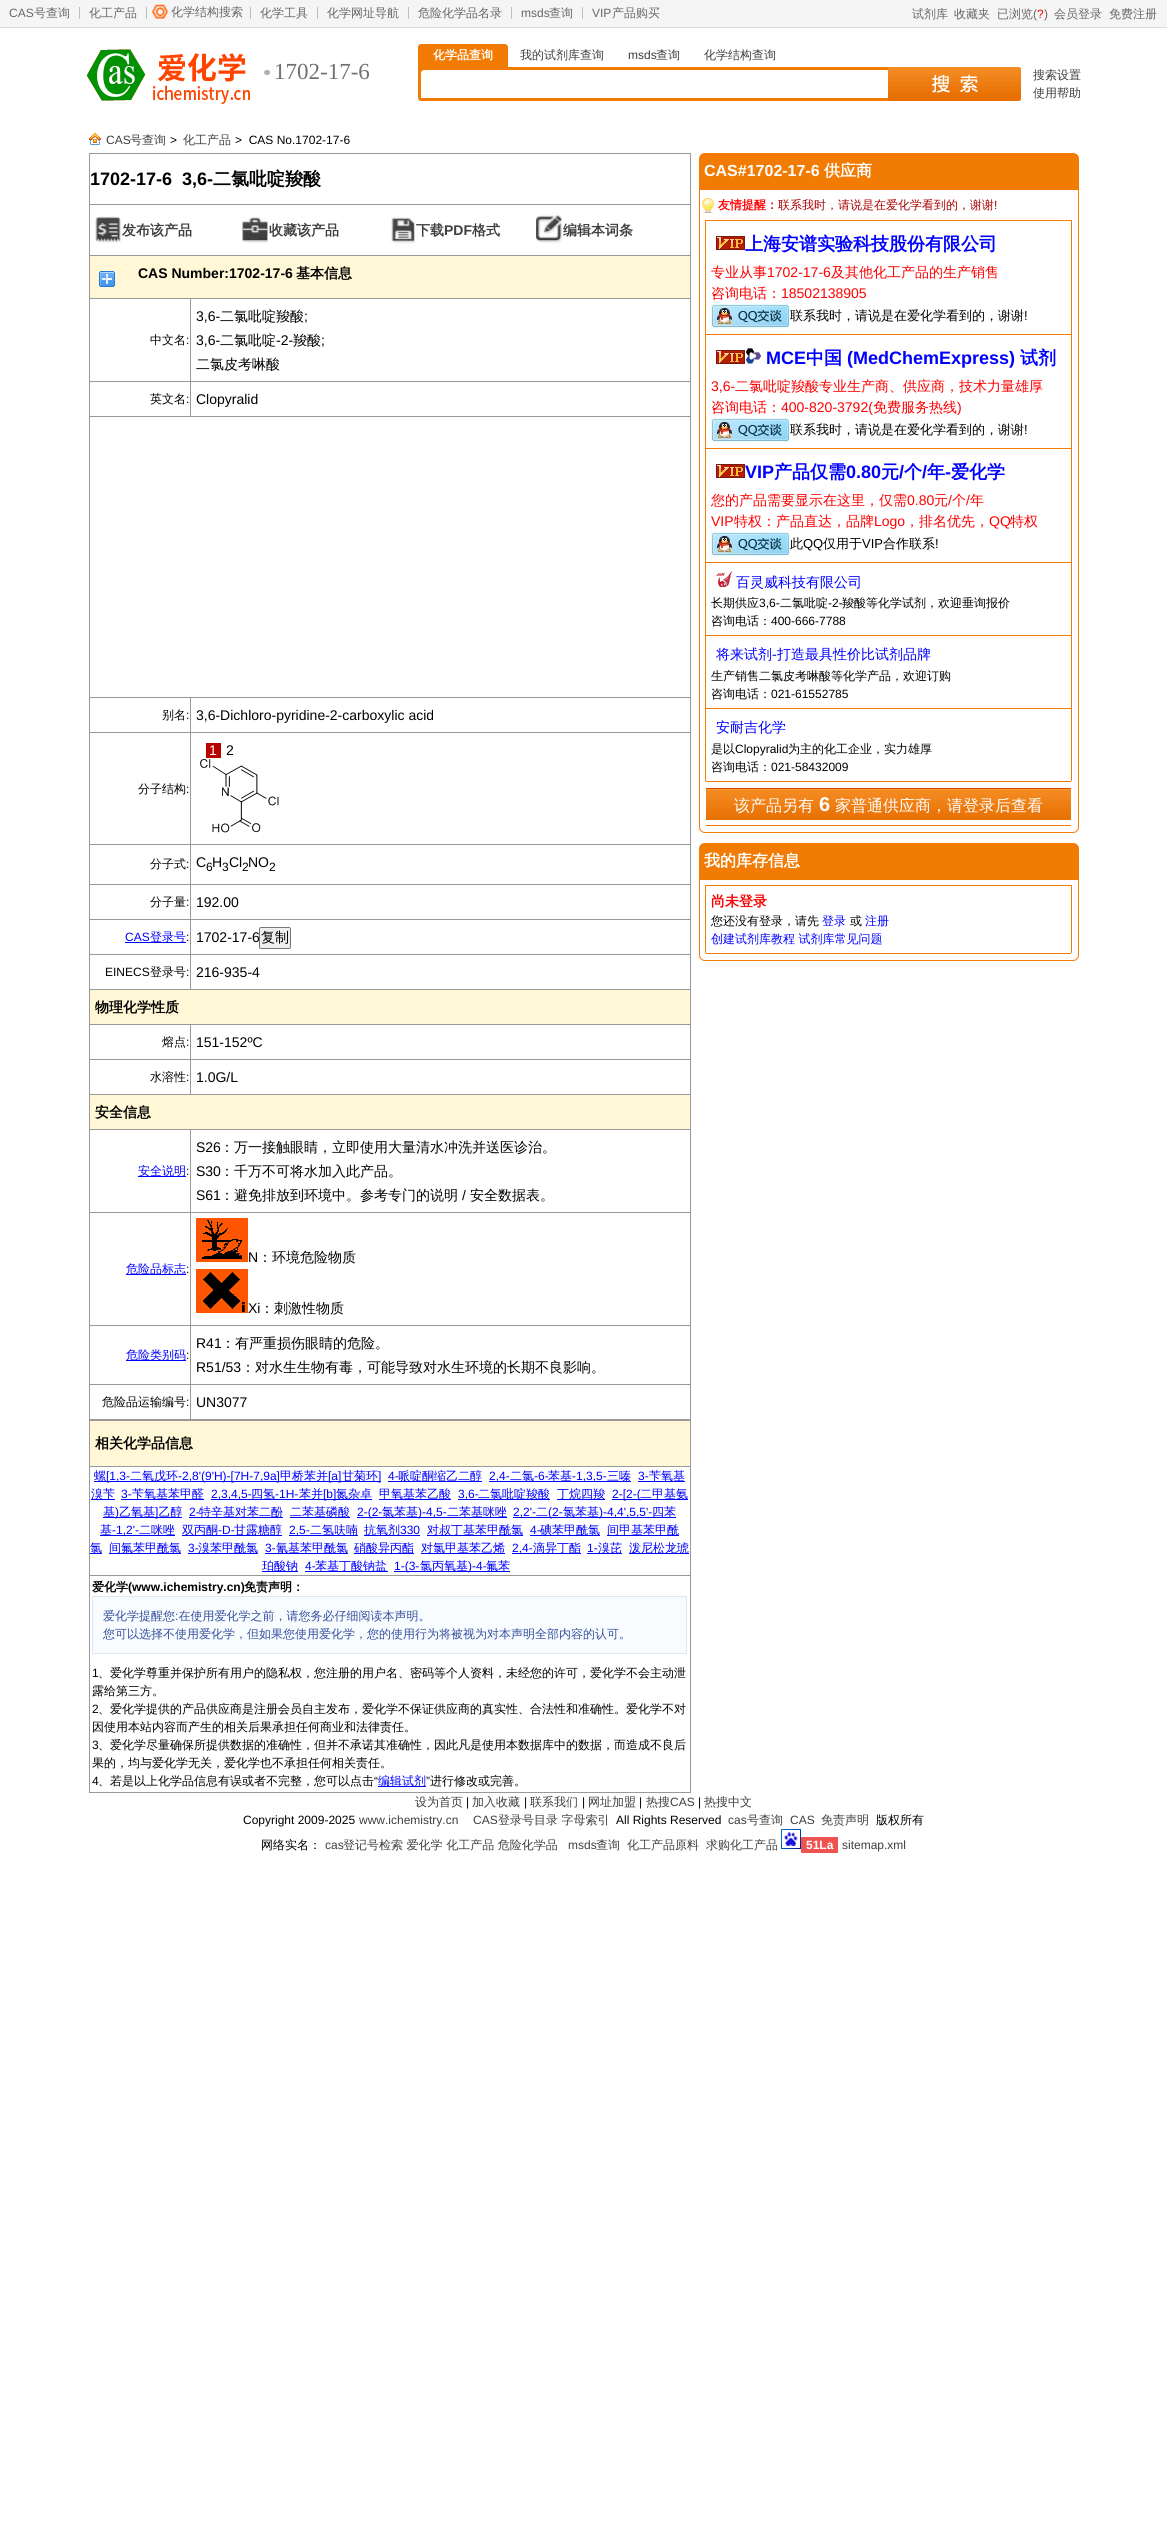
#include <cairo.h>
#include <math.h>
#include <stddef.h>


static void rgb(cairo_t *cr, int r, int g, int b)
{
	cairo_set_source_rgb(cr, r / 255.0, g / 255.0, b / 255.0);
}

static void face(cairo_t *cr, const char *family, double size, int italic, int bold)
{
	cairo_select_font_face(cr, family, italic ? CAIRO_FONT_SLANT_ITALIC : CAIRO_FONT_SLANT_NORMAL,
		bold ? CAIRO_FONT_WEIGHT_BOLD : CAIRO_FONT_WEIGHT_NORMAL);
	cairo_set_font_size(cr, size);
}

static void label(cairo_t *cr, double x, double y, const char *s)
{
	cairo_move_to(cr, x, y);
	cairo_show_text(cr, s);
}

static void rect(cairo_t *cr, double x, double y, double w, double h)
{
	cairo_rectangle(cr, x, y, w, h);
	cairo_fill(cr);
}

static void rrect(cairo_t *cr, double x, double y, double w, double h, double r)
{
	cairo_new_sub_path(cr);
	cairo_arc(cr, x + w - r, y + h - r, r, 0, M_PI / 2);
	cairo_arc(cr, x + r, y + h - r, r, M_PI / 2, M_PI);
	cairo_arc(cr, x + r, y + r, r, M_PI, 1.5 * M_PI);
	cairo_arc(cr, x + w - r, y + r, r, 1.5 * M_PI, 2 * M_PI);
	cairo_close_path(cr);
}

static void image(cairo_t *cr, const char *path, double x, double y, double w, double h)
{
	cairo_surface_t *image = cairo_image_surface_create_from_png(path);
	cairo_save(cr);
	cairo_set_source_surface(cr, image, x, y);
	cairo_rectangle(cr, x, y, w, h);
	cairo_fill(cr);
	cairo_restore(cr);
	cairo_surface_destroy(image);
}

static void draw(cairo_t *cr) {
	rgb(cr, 255, 255, 255);
	cairo_paint(cr);
	rgb(cr, 245, 245, 245);
	rect(cr, 0, 0, 1167, 27);
	rgb(cr, 220, 220, 220);
	rect(cr, 0, 27, 1167, 1);
	rgb(cr, 191, 191, 191);
	rect(cr, 79, 7, 1, 12);
	face(cr, "Liberation Sans", 12, 0, 0);
	rgb(cr, 102, 102, 102);
	label(cr, 9, 17, "CAS");
	face(cr, "WenQuanYi Zen Hei Medium", 12, 0, 0);
	label(cr, 34, 17, "号查询");
	rgb(cr, 191, 191, 191);
	rect(cr, 146, 7, 1, 12);
	rgb(cr, 102, 102, 102);
	label(cr, 89, 17, "化工产品");
	rgb(cr, 191, 191, 191);
	rect(cr, 250, 7, 1, 12);
	image(cr, "image0.png", 152, 4, 16, 15);
	rgb(cr, 102, 102, 102);
	label(cr, 171, 16, "化学结构搜索");
	rgb(cr, 191, 191, 191);
	rect(cr, 317, 7, 1, 12);
	rgb(cr, 102, 102, 102);
	label(cr, 260, 17, "化学工具");
	rgb(cr, 191, 191, 191);
	rect(cr, 408, 7, 1, 12);
	rgb(cr, 102, 102, 102);
	label(cr, 327, 17, "化学网址导航");
	rgb(cr, 191, 191, 191);
	rect(cr, 511, 7, 1, 12);
	rgb(cr, 102, 102, 102);
	label(cr, 418, 17, "危险化学品名录");
	rgb(cr, 194, 194, 194);
	rect(cr, 582, 7, 1, 12);
	face(cr, "Liberation Sans", 12, 0, 0);
	rgb(cr, 102, 102, 102);
	label(cr, 521, 17, "msds");
	face(cr, "WenQuanYi Zen Hei Medium", 12, 0, 0);
	label(cr, 549, 17, "查询");
	face(cr, "Liberation Sans", 12, 0, 0);
	label(cr, 592, 17, "VIP");
	face(cr, "WenQuanYi Zen Hei Medium", 12, 0, 0);
	label(cr, 612, 17, "产品购买");
	label(cr, 912, 18, "试剂库");
	label(cr, 954, 18, "收藏夹");
	label(cr, 997, 18, "已浏览");
	face(cr, "Liberation Sans", 12, 0, 0);
	label(cr, 1033, 18, "(");
	rgb(cr, 255, 0, 0);
	label(cr, 1037, 18, "?");
	rgb(cr, 102, 102, 102);
	label(cr, 1044, 18, ")");
	face(cr, "WenQuanYi Zen Hei Medium", 12, 0, 0);
	label(cr, 1054, 18, "会员登录");
	label(cr, 1109, 18, "免费注册");
	image(cr, "image1.png", 86, 49, 164, 55);
	image(cr, "image2.png", 264, 70, 6, 5);
	face(cr, "Liberation Serif", 23, 0, 0);
	rgb(cr, 113, 113, 113);
	label(cr, 274, 79, "1702-17-6");
	rgb(cr, 242, 123, 4);
	cairo_new_path(cr);
	cairo_move_to(cr, 421, 44);
	cairo_line_to(cr, 505, 44);
	cairo_curve_to(cr, 506.5, 44, 508, 45.5, 508, 47);
	cairo_line_to(cr, 508, 67);
	cairo_line_to(cr, 418, 67);
	cairo_line_to(cr, 418, 47);
	cairo_curve_to(cr, 418, 45.5, 419.5, 44, 421, 44);
	cairo_close_path(cr);
	cairo_fill(cr);
	face(cr, "WenQuanYi Zen Hei", 12, 0, 1);
	rgb(cr, 255, 255, 255);
	label(cr, 433, 59, "化学品查询");
	face(cr, "WenQuanYi Zen Hei Medium", 12, 0, 0);
	rgb(cr, 62, 62, 62);
	label(cr, 520, 59, "我的试剂库查询");
	face(cr, "Liberation Sans", 12, 0, 0);
	label(cr, 628, 59, "msds");
	face(cr, "WenQuanYi Zen Hei Medium", 12, 0, 0);
	label(cr, 656, 59, "查询");
	label(cr, 704, 59, "化学结构查询");
	rgb(cr, 242, 123, 4);
	cairo_new_path(cr);
	cairo_move_to(cr, 418, 67);
	cairo_line_to(cr, 888, 67);
	cairo_line_to(cr, 888, 101);
	cairo_line_to(cr, 421, 101);
	cairo_curve_to(cr, 419.5, 101, 418, 99.5, 418, 98);
	cairo_close_path(cr);
	cairo_fill(cr);
	rgb(cr, 255, 255, 255);
	cairo_new_path(cr);
	cairo_move_to(cr, 424, 70);
	cairo_line_to(cr, 888, 70);
	cairo_line_to(cr, 888, 98);
	cairo_line_to(cr, 421, 98);
	cairo_line_to(cr, 421, 73);
	cairo_curve_to(cr, 421, 71.5, 422.5, 70, 424, 70);
	cairo_close_path(cr);
	cairo_fill(cr);
	image(cr, "image3.png", 888, 67, 133, 34);
	rgb(cr, 62, 62, 62);
	label(cr, 1033, 79, "搜索设置");
	label(cr, 1033, 97, "使用帮助");
	image(cr, "image4.png", 89, 133, 12, 12);
	face(cr, "Liberation Sans", 12, 0, 0);
	label(cr, 106, 144, "CAS");
	face(cr, "WenQuanYi Zen Hei Medium", 12, 0, 0);
	label(cr, 130, 144, "号查询");
	face(cr, "Liberation Sans", 12, 0, 0);
	rgb(cr, 0, 0, 0);
	label(cr, 170, 144, ">");
	face(cr, "WenQuanYi Zen Hei Medium", 12, 0, 0);
	rgb(cr, 62, 62, 62);
	label(cr, 183, 144, "化工产品");
	face(cr, "Liberation Sans", 12, 0, 0);
	rgb(cr, 0, 0, 0);
	label(cr, 235, 144, ">  CAS No.1702-17-6");
	rgb(cr, 153, 153, 153);
	rect(cr, 89, 153, 602, 1);
	rect(cr, 690, 153, 1, 51);
	rect(cr, 89, 153, 1, 51);
	face(cr, "Liberation Sans", 18, 0, 1);
	rgb(cr, 0, 0, 0);
	label(cr, 90, 185, "1702-17-6  3,6-");
	face(cr, "WenQuanYi Zen Hei", 18, 0, 1);
	label(cr, 213, 185, "二氯吡啶羧酸");
	rgb(cr, 153, 153, 153);
	rect(cr, 89, 204, 602, 1);
	rect(cr, 690, 204, 1, 51);
	rect(cr, 89, 204, 1, 51);
	image(cr, "image5.png", 95, 215, 26, 28);
	face(cr, "WenQuanYi Zen Hei", 14, 0, 1);
	rgb(cr, 62, 62, 62);
	label(cr, 122, 235, "发布该产品");
	image(cr, "image6.png", 242, 217, 26, 26);
	label(cr, 269, 235, "收藏该产品");
	image(cr, "image7.png", 390, 215, 25, 29);
	label(cr, 416, 235, "下载");
	face(cr, "Liberation Sans", 14, 0, 1);
	label(cr, 444, 235, "PDF");
	face(cr, "WenQuanYi Zen Hei", 14, 0, 1);
	label(cr, 472, 235, "格式");
	image(cr, "image8.png", 536, 213, 26, 31);
	label(cr, 563, 235, "编辑本词条");
	rgb(cr, 153, 153, 153);
	rect(cr, 89, 255, 602, 1);
	rect(cr, 690, 255, 1, 1538);
	rect(cr, 89, 1792, 602, 1);
	rect(cr, 89, 255, 1, 1538);
	rgb(cr, 255, 247, 214);
	rect(cr, 90, 256, 600, 42);
	image(cr, "image9.png", 99, 271, 16, 16);
	face(cr, "Liberation Sans", 14, 0, 1);
	rgb(cr, 0, 0, 0);
	label(cr, 138, 278, "CAS Number:1702-17-6");
	face(cr, "WenQuanYi Zen Hei", 14, 0, 1);
	label(cr, 296, 278, "基本信息");
	rgb(cr, 153, 153, 153);
	rect(cr, 190, 298, 501, 1);
	rect(cr, 190, 381, 501, 1);
	rect(cr, 89, 416, 602, 1);
	rect(cr, 190, 381, 1, 36);
	rect(cr, 89, 381, 102, 1);
	rect(cr, 190, 298, 1, 84);
	rect(cr, 89, 298, 102, 1);
	face(cr, "WenQuanYi Zen Hei Medium", 12, 0, 0);
	rgb(cr, 0, 0, 0);
	label(cr, 150, 344, "中文名");
	face(cr, "Liberation Sans", 12, 0, 0);
	label(cr, 186, 344, ":");
	face(cr, "Liberation Sans", 14, 0, 0);
	label(cr, 196, 321, "3,6-");
	face(cr, "WenQuanYi Zen Hei Medium", 14, 0, 0);
	label(cr, 220, 321, "二氯吡啶羧酸");
	face(cr, "Liberation Sans", 14, 0, 0);
	label(cr, 304, 321, ";");
	label(cr, 196, 345, "3,6-");
	face(cr, "WenQuanYi Zen Hei Medium", 14, 0, 0);
	label(cr, 220, 345, "二氯吡啶");
	face(cr, "Liberation Sans", 14, 0, 0);
	label(cr, 276, 345, "-2-");
	face(cr, "WenQuanYi Zen Hei Medium", 14, 0, 0);
	label(cr, 293, 345, "羧酸");
	face(cr, "Liberation Sans", 14, 0, 0);
	label(cr, 321, 345, ";");
	face(cr, "WenQuanYi Zen Hei Medium", 14, 0, 0);
	label(cr, 196, 369, "二氯皮考啉酸");
	face(cr, "WenQuanYi Zen Hei Medium", 12, 0, 0);
	label(cr, 150, 403, "英文名");
	face(cr, "Liberation Sans", 12, 0, 0);
	label(cr, 186, 403, ":");
	face(cr, "Liberation Sans", 14, 0, 0);
	label(cr, 196, 404, "Clopyralid");
	rgb(cr, 153, 153, 153);
	rect(cr, 190, 697, 501, 1);
	rect(cr, 190, 732, 501, 1);
	rect(cr, 190, 844, 501, 1);
	rect(cr, 190, 884, 501, 1);
	rect(cr, 190, 919, 501, 1);
	rect(cr, 190, 954, 501, 1);
	rect(cr, 89, 989, 602, 1);
	rect(cr, 190, 954, 1, 36);
	rect(cr, 89, 954, 102, 1);
	rect(cr, 190, 919, 1, 36);
	rect(cr, 89, 919, 102, 1);
	rect(cr, 190, 884, 1, 36);
	rect(cr, 89, 884, 102, 1);
	rect(cr, 190, 844, 1, 41);
	rect(cr, 89, 844, 102, 1);
	rect(cr, 190, 732, 1, 113);
	rect(cr, 89, 732, 102, 1);
	rect(cr, 190, 697, 1, 36);
	rect(cr, 89, 697, 102, 1);
	face(cr, "WenQuanYi Zen Hei Medium", 12, 0, 0);
	rgb(cr, 0, 0, 0);
	label(cr, 162, 719, "别名");
	face(cr, "Liberation Sans", 12, 0, 0);
	label(cr, 186, 719, ":");
	face(cr, "Liberation Sans", 14, 0, 0);
	label(cr, 196, 720, "3,6-Dichloro-pyridine-2-carboxylic acid");
	rgb(cr, 185, 1, 1);
	rect(cr, 206, 743, 15, 15);
	rgb(cr, 255, 255, 255);
	label(cr, 209, 755, "1");
	rgb(cr, 0, 0, 0);
	label(cr, 226, 755, "2");
	image(cr, "image10.png", 200, 759, 79, 74);
	face(cr, "WenQuanYi Zen Hei Medium", 12, 0, 0);
	label(cr, 138, 793, "分子结构");
	face(cr, "Liberation Sans", 12, 0, 0);
	label(cr, 186, 793, ":");
	face(cr, "WenQuanYi Zen Hei Medium", 12, 0, 0);
	label(cr, 150, 868, "分子式");
	face(cr, "Liberation Sans", 12, 0, 0);
	label(cr, 186, 868, ":");
	face(cr, "Liberation Sans", 14, 0, 0);
	label(cr, 196, 867, "C");
	face(cr, "Liberation Sans", 12, 0, 0);
	label(cr, 206, 871, "6");
	face(cr, "Liberation Sans", 14, 0, 0);
	label(cr, 212, 867, "H");
	face(cr, "Liberation Sans", 12, 0, 0);
	label(cr, 222, 871, "3");
	face(cr, "Liberation Sans", 14, 0, 0);
	label(cr, 229, 867, "Cl");
	face(cr, "Liberation Sans", 12, 0, 0);
	label(cr, 242, 871, "2");
	face(cr, "Liberation Sans", 14, 0, 0);
	label(cr, 248, 867, "NO");
	face(cr, "Liberation Sans", 12, 0, 0);
	label(cr, 269, 871, "2");
	face(cr, "WenQuanYi Zen Hei Medium", 12, 0, 0);
	label(cr, 150, 906, "分子量");
	face(cr, "Liberation Sans", 12, 0, 0);
	label(cr, 186, 906, ":");
	face(cr, "Liberation Sans", 14, 0, 0);
	label(cr, 196, 907, "192.00");
	face(cr, "Liberation Sans", 12, 0, 0);
	rgb(cr, 0, 0, 255);
	label(cr, 125, 941, "CAS");
	rect(cr, 125, 942, 61, 1);
	face(cr, "WenQuanYi Zen Hei Medium", 12, 0, 0);
	label(cr, 150, 941, "登录号");
	face(cr, "Liberation Sans", 12, 0, 0);
	rgb(cr, 0, 0, 0);
	label(cr, 186, 941, ":");
	face(cr, "Liberation Sans", 14, 0, 0);
	label(cr, 196, 942, "1702-17-6");
	rgb(cr, 239, 239, 239);
	rrect(cr, 259.5, 927.5, 31, 21, 1.5);
	cairo_fill_preserve(cr);
	rgb(cr, 118, 118, 118);
	cairo_set_line_width(cr, 1);
	cairo_stroke(cr);
	face(cr, "WenQuanYi Zen Hei Medium", 14, 0, 0);
	rgb(cr, 0, 0, 0);
	label(cr, 261, 942, "复制");
	face(cr, "Liberation Sans", 12, 0, 0);
	label(cr, 105, 976, "EINECS");
	face(cr, "WenQuanYi Zen Hei Medium", 12, 0, 0);
	label(cr, 150, 976, "登录号");
	face(cr, "Liberation Sans", 12, 0, 0);
	label(cr, 186, 976, ":");
	face(cr, "Liberation Sans", 14, 0, 0);
	label(cr, 196, 977, "216-935-4");
	rgb(cr, 255, 247, 214);
	rect(cr, 90, 990, 600, 34);
	face(cr, "WenQuanYi Zen Hei", 14, 0, 1);
	rgb(cr, 0, 0, 0);
	label(cr, 95, 1012, "物理化学性质");
	rgb(cr, 153, 153, 153);
	rect(cr, 190, 1024, 501, 1);
	rect(cr, 190, 1059, 501, 1);
	rect(cr, 89, 1094, 602, 1);
	rect(cr, 190, 1059, 1, 36);
	rect(cr, 89, 1059, 102, 1);
	rect(cr, 190, 1024, 1, 36);
	rect(cr, 89, 1024, 102, 1);
	face(cr, "WenQuanYi Zen Hei Medium", 12, 0, 0);
	rgb(cr, 0, 0, 0);
	label(cr, 162, 1046, "熔点");
	face(cr, "Liberation Sans", 12, 0, 0);
	label(cr, 186, 1046, ":");
	face(cr, "Liberation Sans", 14, 0, 0);
	label(cr, 196, 1047, "151-152ºC");
	face(cr, "WenQuanYi Zen Hei Medium", 12, 0, 0);
	label(cr, 150, 1081, "水溶性");
	face(cr, "Liberation Sans", 12, 0, 0);
	label(cr, 186, 1081, ":");
	face(cr, "Liberation Sans", 14, 0, 0);
	label(cr, 196, 1082, "1.0G/L");
	rgb(cr, 255, 247, 214);
	rect(cr, 90, 1095, 600, 34);
	face(cr, "WenQuanYi Zen Hei", 14, 0, 1);
	rgb(cr, 0, 0, 0);
	label(cr, 95, 1117, "安全信息");
	rgb(cr, 153, 153, 153);
	rect(cr, 190, 1129, 501, 1);
	rect(cr, 190, 1212, 501, 1);
	rect(cr, 190, 1325, 501, 1);
	rect(cr, 190, 1384, 501, 1);
	rect(cr, 89, 1419, 602, 2);
	rect(cr, 190, 1384, 1, 36);
	rect(cr, 89, 1384, 102, 1);
	rect(cr, 190, 1325, 1, 60);
	rect(cr, 89, 1325, 102, 1);
	rect(cr, 190, 1212, 1, 114);
	rect(cr, 89, 1212, 102, 1);
	rect(cr, 190, 1129, 1, 84);
	rect(cr, 89, 1129, 102, 1);
	rgb(cr, 0, 0, 255);
	rect(cr, 138, 1176, 48, 1);
	face(cr, "WenQuanYi Zen Hei Medium", 12, 0, 0);
	label(cr, 138, 1175, "安全说明");
	face(cr, "Liberation Sans", 12, 0, 0);
	rgb(cr, 0, 0, 0);
	label(cr, 186, 1175, ":");
	face(cr, "Liberation Sans", 14, 0, 0);
	label(cr, 196, 1152, "S26");
	face(cr, "WenQuanYi Zen Hei Medium", 14, 0, 0);
	label(cr, 220, 1152, "：万一接触眼睛，立即使用大量清水冲洗并送医诊治。");
	face(cr, "Liberation Sans", 14, 0, 0);
	label(cr, 196, 1176, "S30");
	face(cr, "WenQuanYi Zen Hei Medium", 14, 0, 0);
	label(cr, 220, 1176, "：千万不可将水加入此产品。");
	face(cr, "Liberation Sans", 14, 0, 0);
	label(cr, 196, 1200, "S61");
	face(cr, "WenQuanYi Zen Hei Medium", 14, 0, 0);
	label(cr, 220, 1200, "：避免排放到环境中。参考专门的说明");
	face(cr, "Liberation Sans", 14, 0, 0);
	label(cr, 462, 1200, "/");
	face(cr, "WenQuanYi Zen Hei Medium", 14, 0, 0);
	label(cr, 470, 1200, "安全数据表。");
	rgb(cr, 0, 0, 255);
	rect(cr, 126, 1274, 60, 1);
	face(cr, "WenQuanYi Zen Hei Medium", 12, 0, 0);
	label(cr, 126, 1273, "危险品标志");
	face(cr, "Liberation Sans", 12, 0, 0);
	rgb(cr, 0, 0, 0);
	label(cr, 186, 1273, ":");
	image(cr, "image11.png", 196, 1218, 52, 44);
	face(cr, "Liberation Sans", 14, 0, 0);
	label(cr, 248, 1262, "N");
	face(cr, "WenQuanYi Zen Hei Medium", 14, 0, 0);
	label(cr, 258, 1262, "：环境危险物质");
	image(cr, "image12.png", 196, 1269, 52, 44);
	face(cr, "Liberation Sans", 14, 0, 0);
	label(cr, 248, 1313, "Xi");
	face(cr, "WenQuanYi Zen Hei Medium", 14, 0, 0);
	label(cr, 260, 1313, "：刺激性物质");
	rgb(cr, 0, 0, 255);
	rect(cr, 126, 1360, 60, 1);
	face(cr, "WenQuanYi Zen Hei Medium", 12, 0, 0);
	label(cr, 126, 1359, "危险类别码");
	face(cr, "Liberation Sans", 12, 0, 0);
	rgb(cr, 0, 0, 0);
	label(cr, 186, 1359, ":");
	face(cr, "Liberation Sans", 14, 0, 0);
	label(cr, 196, 1348, "R41");
	face(cr, "WenQuanYi Zen Hei Medium", 14, 0, 0);
	label(cr, 221, 1348, "：有严重损伤眼睛的危险。");
	face(cr, "Liberation Sans", 14, 0, 0);
	label(cr, 196, 1372, "R51/53");
	face(cr, "WenQuanYi Zen Hei Medium", 14, 0, 0);
	label(cr, 241, 1372, "：对水生生物有毒，可能导致对水生环境的长期不良影响。");
	face(cr, "WenQuanYi Zen Hei Medium", 12, 0, 0);
	label(cr, 102, 1406, "危险品运输编号");
	face(cr, "Liberation Sans", 12, 0, 0);
	label(cr, 186, 1406, ":");
	face(cr, "Liberation Sans", 14, 0, 0);
	label(cr, 196, 1407, "UN3077");
	rgb(cr, 255, 247, 214);
	rect(cr, 90, 1421, 600, 45);
	face(cr, "WenQuanYi Zen Hei", 14, 0, 1);
	rgb(cr, 0, 0, 0);
	label(cr, 95, 1448, "相关化学品信息");
	rgb(cr, 153, 153, 153);
	rect(cr, 89, 1466, 602, 1);
	rgb(cr, 0, 0, 255);
	rect(cr, 94, 1481, 287, 1);
	face(cr, "WenQuanYi Zen Hei Medium", 12, 0, 0);
	label(cr, 94, 1480, "螺");
	face(cr, "Liberation Sans", 12, 0, 0);
	label(cr, 106, 1480, "[1,3-");
	face(cr, "WenQuanYi Zen Hei Medium", 12, 0, 0);
	label(cr, 130, 1480, "二氧戊环");
	face(cr, "Liberation Sans", 12, 0, 0);
	label(cr, 178, 1480, "-2,8'(9'H)-[7H-7,9a]");
	face(cr, "WenQuanYi Zen Hei Medium", 12, 0, 0);
	label(cr, 280, 1480, "甲桥苯并");
	face(cr, "Liberation Sans", 12, 0, 0);
	label(cr, 328, 1480, "[a]");
	face(cr, "WenQuanYi Zen Hei Medium", 12, 0, 0);
	label(cr, 342, 1480, "甘菊环");
	face(cr, "Liberation Sans", 12, 0, 0);
	label(cr, 378, 1480, "]");
	label(cr, 388, 1480, "4-");
	rect(cr, 388, 1481, 94, 1);
	face(cr, "WenQuanYi Zen Hei Medium", 12, 0, 0);
	label(cr, 398, 1480, "哌啶酮缩乙二醇");
	rect(cr, 489, 1481, 142, 1);
	face(cr, "Liberation Sans", 12, 0, 0);
	label(cr, 489, 1480, "2,4-");
	face(cr, "WenQuanYi Zen Hei Medium", 12, 0, 0);
	label(cr, 510, 1480, "二氯");
	face(cr, "Liberation Sans", 12, 0, 0);
	label(cr, 534, 1480, "-6-");
	face(cr, "WenQuanYi Zen Hei Medium", 12, 0, 0);
	label(cr, 548, 1480, "苯基");
	face(cr, "Liberation Sans", 12, 0, 0);
	label(cr, 572, 1480, "-1,3,5-");
	face(cr, "WenQuanYi Zen Hei Medium", 12, 0, 0);
	label(cr, 607, 1480, "三嗪");
	face(cr, "Liberation Sans", 12, 0, 0);
	label(cr, 638, 1480, "3-");
	rect(cr, 638, 1481, 47, 1);
	face(cr, "WenQuanYi Zen Hei Medium", 12, 0, 0);
	label(cr, 649, 1480, "苄氧基");
	rect(cr, 91, 1499, 24, 1);
	label(cr, 91, 1498, "溴苄");
	face(cr, "Liberation Sans", 12, 0, 0);
	label(cr, 121, 1498, "3-");
	rect(cr, 121, 1499, 83, 1);
	face(cr, "WenQuanYi Zen Hei Medium", 12, 0, 0);
	label(cr, 132, 1498, "苄氧基苯甲醛");
	rect(cr, 211, 1499, 161, 1);
	face(cr, "Liberation Sans", 12, 0, 0);
	label(cr, 211, 1498, "2,3,4,5-");
	face(cr, "WenQuanYi Zen Hei Medium", 12, 0, 0);
	label(cr, 251, 1498, "四氢");
	face(cr, "Liberation Sans", 12, 0, 0);
	label(cr, 275, 1498, "-1H-");
	face(cr, "WenQuanYi Zen Hei Medium", 12, 0, 0);
	label(cr, 299, 1498, "苯并");
	face(cr, "Liberation Sans", 12, 0, 0);
	label(cr, 323, 1498, "[b]");
	face(cr, "WenQuanYi Zen Hei Medium", 12, 0, 0);
	label(cr, 336, 1498, "氮杂卓");
	rect(cr, 379, 1499, 72, 1);
	label(cr, 379, 1498, "甲氧基苯乙酸");
	rect(cr, 458, 1499, 92, 1);
	face(cr, "Liberation Sans", 12, 0, 0);
	label(cr, 458, 1498, "3,6-");
	face(cr, "WenQuanYi Zen Hei Medium", 12, 0, 0);
	label(cr, 478, 1498, "二氯吡啶羧酸");
	rect(cr, 557, 1499, 48, 1);
	label(cr, 557, 1498, "丁烷四羧");
	rect(cr, 612, 1499, 76, 1);
	face(cr, "Liberation Sans", 12, 0, 0);
	label(cr, 612, 1498, "2-[2-(");
	face(cr, "WenQuanYi Zen Hei Medium", 12, 0, 0);
	label(cr, 640, 1498, "二甲基氨");
	rect(cr, 103, 1517, 79, 1);
	label(cr, 103, 1516, "基");
	face(cr, "Liberation Sans", 12, 0, 0);
	label(cr, 115, 1516, ")");
	face(cr, "WenQuanYi Zen Hei Medium", 12, 0, 0);
	label(cr, 119, 1516, "乙氧基 乙醇");
	rect(cr, 189, 1517, 94, 1);
	label(cr, 199, 1516, "特辛基对苯二酚");
	rect(cr, 290, 1517, 60, 1);
	label(cr, 290, 1516, "二苯基磷酸");
	rect(cr, 357, 1517, 150, 1);
	label(cr, 382, 1516, "氯苯基");
	label(cr, 447, 1516, "二苯基咪唑");
	rect(cr, 513, 1517, 163, 1);
	label(cr, 563, 1516, "氯苯基");
	label(cr, 652, 1516, "四苯");
	face(cr, "Liberation Sans", 12, 0, 0);
	label(cr, 155, 1516, "]");
	label(cr, 189, 1516, "2-");
	label(cr, 357, 1516, "2-(2-");
	label(cr, 418, 1516, ")-4,5-");
	label(cr, 513, 1516, "2,2'-");
	face(cr, "WenQuanYi Zen Hei Medium", 12, 0, 0);
	label(cr, 536, 1516, "二");
	face(cr, "Liberation Sans", 12, 0, 0);
	label(cr, 548, 1516, "(2-");
	label(cr, 599, 1516, ")-4,4',5,5'-");
	rect(cr, 100, 1535, 75, 1);
	face(cr, "WenQuanYi Zen Hei Medium", 12, 0, 0);
	label(cr, 100, 1534, "基");
	face(cr, "Liberation Sans", 12, 0, 0);
	label(cr, 112, 1534, "-1,2'-");
	face(cr, "WenQuanYi Zen Hei Medium", 12, 0, 0);
	label(cr, 139, 1534, "二咪唑");
	rect(cr, 182, 1535, 100, 1);
	label(cr, 182, 1534, "双丙酮");
	face(cr, "Liberation Sans", 12, 0, 0);
	label(cr, 218, 1534, "-D-");
	face(cr, "WenQuanYi Zen Hei Medium", 12, 0, 0);
	label(cr, 234, 1534, "甘露糖醇");
	rect(cr, 289, 1535, 69, 1);
	face(cr, "Liberation Sans", 12, 0, 0);
	label(cr, 289, 1534, "2,5-");
	face(cr, "WenQuanYi Zen Hei Medium", 12, 0, 0);
	label(cr, 310, 1534, "二氢呋喃");
	rect(cr, 364, 1535, 56, 1);
	label(cr, 364, 1534, "抗氧剂");
	face(cr, "Liberation Sans", 12, 0, 0);
	label(cr, 400, 1534, "330");
	rect(cr, 427, 1535, 96, 1);
	face(cr, "WenQuanYi Zen Hei Medium", 12, 0, 0);
	label(cr, 427, 1534, "对叔丁基苯甲酰氯");
	face(cr, "Liberation Sans", 12, 0, 0);
	label(cr, 530, 1534, "4-");
	rect(cr, 530, 1535, 70, 1);
	face(cr, "WenQuanYi Zen Hei Medium", 12, 0, 0);
	label(cr, 540, 1534, "碘苯甲酰氯");
	rect(cr, 607, 1535, 72, 1);
	label(cr, 607, 1534, "间甲基苯甲酰");
	rect(cr, 90, 1553, 12, 1);
	label(cr, 90, 1552, "氯");
	rect(cr, 109, 1553, 72, 1);
	label(cr, 109, 1552, "间氟苯甲酰氯");
	face(cr, "Liberation Sans", 12, 0, 0);
	label(cr, 188, 1552, "3-");
	rect(cr, 188, 1553, 70, 1);
	face(cr, "WenQuanYi Zen Hei Medium", 12, 0, 0);
	label(cr, 198, 1552, "溴苯甲酰氯");
	face(cr, "Liberation Sans", 12, 0, 0);
	label(cr, 265, 1552, "3-");
	rect(cr, 265, 1553, 83, 1);
	face(cr, "WenQuanYi Zen Hei Medium", 12, 0, 0);
	label(cr, 276, 1552, "氰基苯甲酰氯");
	rect(cr, 354, 1553, 60, 1);
	label(cr, 354, 1552, "硝酸异丙酯");
	rect(cr, 421, 1553, 84, 1);
	label(cr, 421, 1552, "对氯甲基苯乙烯");
	rect(cr, 512, 1553, 69, 1);
	face(cr, "Liberation Sans", 12, 0, 0);
	label(cr, 512, 1552, "2,4-");
	face(cr, "WenQuanYi Zen Hei Medium", 12, 0, 0);
	label(cr, 533, 1552, "滴异丁酯");
	face(cr, "Liberation Sans", 12, 0, 0);
	label(cr, 587, 1552, "1-");
	rect(cr, 587, 1553, 35, 1);
	face(cr, "WenQuanYi Zen Hei Medium", 12, 0, 0);
	label(cr, 598, 1552, "溴芘");
	rect(cr, 629, 1553, 60, 1);
	label(cr, 629, 1552, "泼尼松龙琥");
	rect(cr, 262, 1571, 36, 1);
	label(cr, 262, 1570, "珀酸钠");
	face(cr, "Liberation Sans", 12, 0, 0);
	label(cr, 305, 1570, "4-");
	rect(cr, 305, 1571, 83, 1);
	face(cr, "WenQuanYi Zen Hei Medium", 12, 0, 0);
	label(cr, 315, 1570, "苯基丁酸钠盐");
	rect(cr, 394, 1571, 116, 1);
	face(cr, "Liberation Sans", 12, 0, 0);
	label(cr, 394, 1570, "1-(3-");
	face(cr, "WenQuanYi Zen Hei Medium", 12, 0, 0);
	label(cr, 420, 1570, "氯丙氧基");
	face(cr, "Liberation Sans", 12, 0, 0);
	label(cr, 468, 1570, ")-4-");
	face(cr, "WenQuanYi Zen Hei Medium", 12, 0, 0);
	label(cr, 486, 1570, "氟苯");
	rgb(cr, 153, 153, 153);
	rect(cr, 89, 1575, 602, 1);
	face(cr, "WenQuanYi Zen Hei", 12, 0, 1);
	rgb(cr, 0, 0, 0);
	label(cr, 92, 1591, "爱化学");
	face(cr, "Liberation Sans", 12, 0, 1);
	label(cr, 128, 1591, "(www.ichemistry.cn)");
	face(cr, "WenQuanYi Zen Hei", 12, 0, 1);
	label(cr, 244, 1591, "免责声明：");
	rgb(cr, 248, 252, 255);
	cairo_rectangle(cr, 92.5, 1596.5, 594, 57);
	cairo_fill_preserve(cr);
	rgb(cr, 221, 231, 243);
	cairo_stroke(cr);
	face(cr, "WenQuanYi Zen Hei Medium", 12, 0, 0);
	rgb(cr, 52, 78, 158);
	label(cr, 103, 1620, "爱化学提醒您 在使用爱化学之前，请您务必仔细阅读本声明。");
	face(cr, "Liberation Sans", 12, 0, 0);
	label(cr, 175, 1620, ":");
	face(cr, "WenQuanYi Zen Hei Medium", 12, 0, 0);
	label(cr, 103, 1638, "您可以选择不使用爱化学，但如果您使用爱化学，您的使用行为将被视为对本声明全部内容的认可。");
	face(cr, "Liberation Sans", 12, 0, 0);
	rgb(cr, 0, 0, 0);
	label(cr, 92, 1677, "1");
	face(cr, "WenQuanYi Zen Hei Medium", 12, 0, 0);
	label(cr, 98, 1677, "、爱化学尊重并保护所有用户的隐私权，您注册的用户名、密码等个人资料，未经您的许可，爱化学不会主动泄");
	label(cr, 92, 1695, "露给第三方。");
	face(cr, "Liberation Sans", 12, 0, 0);
	label(cr, 92, 1713, "2");
	face(cr, "WenQuanYi Zen Hei Medium", 12, 0, 0);
	label(cr, 98, 1713, "、爱化学提供的产品供应商是注册会员自主发布，爱化学不保证供应商的真实性、合法性和准确性。爱化学不对");
	label(cr, 92, 1731, "因使用本站内容而产生的相关后果承担任何商业和法律责任。");
	face(cr, "Liberation Sans", 12, 0, 0);
	label(cr, 92, 1749, "3");
	face(cr, "WenQuanYi Zen Hei Medium", 12, 0, 0);
	label(cr, 98, 1749, "、爱化学尽量确保所提供数据的准确性，但并不承诺其准确性，因此凡是使用本数据库中的数据，而造成不良后");
	label(cr, 92, 1767, "果的，均与爱化学无关，爱化学也不承担任何相关责任。");
	face(cr, "Liberation Sans", 12, 0, 0);
	label(cr, 92, 1785, "4");
	face(cr, "WenQuanYi Zen Hei Medium", 12, 0, 0);
	label(cr, 98, 1785, "、若是以上化学品信息有误或者不完整，您可以点击");
	face(cr, "Liberation Sans", 12, 0, 0);
	label(cr, 374, 1785, "“");
	rgb(cr, 0, 0, 255);
	rect(cr, 378, 1786, 48, 1);
	face(cr, "WenQuanYi Zen Hei Medium", 12, 0, 0);
	label(cr, 378, 1785, "编辑试剂");
	face(cr, "Liberation Sans", 12, 0, 0);
	rgb(cr, 0, 0, 0);
	label(cr, 426, 1785, "”");
	face(cr, "WenQuanYi Zen Hei Medium", 12, 0, 0);
	label(cr, 430, 1785, "进行修改或完善。");
	rgb(cr, 242, 123, 4);
	cairo_new_path(cr);
	cairo_move_to(cr, 705, 153);
	cairo_line_to(cr, 1073, 153);
	cairo_curve_to(cr, 1076.5, 153, 1079, 155.5, 1079, 159);
	cairo_line_to(cr, 1079, 189);
	cairo_line_to(cr, 699, 189);
	cairo_line_to(cr, 699, 159);
	cairo_curve_to(cr, 699, 155.5, 701.5, 153, 705, 153);
	cairo_close_path(cr);
	cairo_fill(cr);
	face(cr, "Liberation Sans", 16, 0, 1);
	rgb(cr, 255, 255, 255);
	label(cr, 704, 176, "CAS#1702-17-6");
	face(cr, "WenQuanYi Zen Hei", 16, 0, 1);
	label(cr, 824, 176, "供应商");
	cairo_new_path(cr);
	cairo_move_to(cr, 699.5, 189.5);
	cairo_line_to(cr, 1078.5, 189.5);
	cairo_line_to(cr, 1078.5, 827);
	cairo_curve_to(cr, 1078.5, 830, 1076, 832.5, 1073, 832.5);
	cairo_line_to(cr, 705, 832.5);
	cairo_curve_to(cr, 702, 832.5, 699.5, 830, 699.5, 827);
	cairo_close_path(cr);
	rgb(cr, 242, 123, 4);
	cairo_stroke(cr);
	image(cr, "image13.png", 702, 198, 12, 15);
	face(cr, "WenQuanYi Zen Hei", 12, 0, 1);
	rgb(cr, 255, 0, 0);
	label(cr, 718, 209, "友情提醒：");
	face(cr, "WenQuanYi Zen Hei Medium", 12, 0, 0);
	rgb(cr, 169, 1, 1);
	label(cr, 778, 209, "联系我时，请说是在爱化学看到的，谢谢");
	face(cr, "Liberation Sans", 12, 0, 0);
	label(cr, 994, 209, "!");
	rgb(cr, 242, 123, 4);
	rect(cr, 705, 220, 367, 1);
	rect(cr, 1071, 220, 1, 114);
	rect(cr, 705, 220, 1, 114);
	image(cr, "image14.png", 716, 236, 29, 14);
	face(cr, "WenQuanYi Zen Hei", 18, 0, 1);
	rgb(cr, 0, 0, 255);
	label(cr, 745, 250, "上海安谱实验科技股份有限公司");
	face(cr, "WenQuanYi Zen Hei Medium", 14, 0, 0);
	rgb(cr, 255, 0, 0);
	label(cr, 711, 277, "专业从事");
	face(cr, "Liberation Sans", 14, 0, 0);
	label(cr, 767, 277, "1702-17-6");
	face(cr, "WenQuanYi Zen Hei Medium", 14, 0, 0);
	label(cr, 831, 277, "及其他化工产品的生产销售");
	label(cr, 711, 298, "咨询电话：");
	face(cr, "Liberation Sans", 14, 0, 0);
	label(cr, 781, 298, "18502138905");
	image(cr, "image15.png", 711, 304, 79, 25);
	face(cr, "WenQuanYi Zen Hei Medium", 13, 0, 0);
	rgb(cr, 0, 0, 0);
	label(cr, 790, 320, "联系我时，请说是在爱化学看到的，谢谢");
	face(cr, "Liberation Sans", 13, 0, 0);
	label(cr, 1024, 320, "!");
	rgb(cr, 242, 123, 4);
	rect(cr, 705, 334, 367, 1);
	rect(cr, 1071, 334, 1, 114);
	rect(cr, 705, 334, 1, 114);
	image(cr, "image14.png", 716, 350, 29, 14);
	image(cr, "image16.png", 745, 348, 16, 16);
	face(cr, "Liberation Sans", 18, 0, 1);
	rgb(cr, 0, 0, 255);
	label(cr, 766, 364, "MCE");
	face(cr, "WenQuanYi Zen Hei", 18, 0, 1);
	label(cr, 806, 364, "中国");
	face(cr, "Liberation Sans", 18, 0, 1);
	label(cr, 847, 364, "(MedChemExpress)");
	face(cr, "WenQuanYi Zen Hei", 18, 0, 1);
	label(cr, 1020, 364, "试剂");
	face(cr, "Liberation Sans", 14, 0, 0);
	rgb(cr, 255, 0, 0);
	label(cr, 711, 391, "3,6-");
	face(cr, "WenQuanYi Zen Hei Medium", 14, 0, 0);
	label(cr, 735, 391, "二氯吡啶羧酸专业生产商、供应商，技术力量雄厚");
	label(cr, 711, 412, "咨询电话：");
	face(cr, "Liberation Sans", 14, 0, 0);
	label(cr, 781, 412, "400-820-3792(");
	face(cr, "WenQuanYi Zen Hei Medium", 14, 0, 0);
	label(cr, 873, 412, "免费服务热线");
	face(cr, "Liberation Sans", 14, 0, 0);
	label(cr, 957, 412, ")");
	image(cr, "image15.png", 711, 418, 79, 25);
	face(cr, "WenQuanYi Zen Hei Medium", 13, 0, 0);
	rgb(cr, 0, 0, 0);
	label(cr, 790, 434, "联系我时，请说是在爱化学看到的，谢谢");
	face(cr, "Liberation Sans", 13, 0, 0);
	label(cr, 1024, 434, "!");
	rgb(cr, 242, 123, 4);
	rect(cr, 705, 448, 367, 1);
	rect(cr, 1071, 448, 1, 114);
	rect(cr, 705, 448, 1, 114);
	image(cr, "image14.png", 716, 464, 29, 14);
	face(cr, "Liberation Sans", 18, 0, 1);
	rgb(cr, 0, 0, 255);
	label(cr, 745, 478, "VIP");
	face(cr, "WenQuanYi Zen Hei", 18, 0, 1);
	label(cr, 774, 478, "产品仅需");
	face(cr, "Liberation Sans", 18, 0, 1);
	label(cr, 846, 478, "0.80");
	face(cr, "WenQuanYi Zen Hei", 18, 0, 1);
	label(cr, 881, 478, "元");
	face(cr, "Liberation Sans", 18, 0, 1);
	label(cr, 899, 478, "/");
	face(cr, "WenQuanYi Zen Hei", 18, 0, 1);
	label(cr, 904, 478, "个");
	face(cr, "Liberation Sans", 18, 0, 1);
	label(cr, 922, 478, "/");
	face(cr, "WenQuanYi Zen Hei", 18, 0, 1);
	label(cr, 927, 478, "年");
	face(cr, "Liberation Sans", 18, 0, 1);
	label(cr, 945, 478, "-");
	face(cr, "WenQuanYi Zen Hei", 18, 0, 1);
	label(cr, 951, 478, "爱化学");
	face(cr, "WenQuanYi Zen Hei Medium", 14, 0, 0);
	rgb(cr, 255, 0, 0);
	label(cr, 711, 505, "您的产品需要显示在这里，仅需");
	face(cr, "Liberation Sans", 14, 0, 0);
	label(cr, 907, 505, "0.80");
	face(cr, "WenQuanYi Zen Hei Medium", 14, 0, 0);
	label(cr, 934, 505, "元");
	face(cr, "Liberation Sans", 14, 0, 0);
	label(cr, 948, 505, "/");
	face(cr, "WenQuanYi Zen Hei Medium", 14, 0, 0);
	label(cr, 952, 505, "个");
	face(cr, "Liberation Sans", 14, 0, 0);
	label(cr, 966, 505, "/");
	face(cr, "WenQuanYi Zen Hei Medium", 14, 0, 0);
	label(cr, 970, 505, "年");
	face(cr, "Liberation Sans", 14, 0, 0);
	label(cr, 711, 526, "VIP");
	face(cr, "WenQuanYi Zen Hei Medium", 14, 0, 0);
	label(cr, 734, 526, "特权：产品直达，品牌");
	face(cr, "Liberation Sans", 14, 0, 0);
	label(cr, 874, 526, "Logo");
	face(cr, "WenQuanYi Zen Hei Medium", 14, 0, 0);
	label(cr, 905, 526, "，排名优先，");
	face(cr, "Liberation Sans", 14, 0, 0);
	label(cr, 989, 526, "QQ");
	face(cr, "WenQuanYi Zen Hei Medium", 14, 0, 0);
	label(cr, 1010, 526, "特权");
	image(cr, "image15.png", 711, 532, 79, 25);
	face(cr, "WenQuanYi Zen Hei Medium", 13, 0, 0);
	rgb(cr, 0, 0, 0);
	label(cr, 790, 548, "此");
	face(cr, "Liberation Sans", 13, 0, 0);
	label(cr, 803, 548, "QQ");
	face(cr, "WenQuanYi Zen Hei Medium", 13, 0, 0);
	label(cr, 823, 548, "仅用于");
	face(cr, "Liberation Sans", 13, 0, 0);
	label(cr, 862, 548, "VIP");
	face(cr, "WenQuanYi Zen Hei Medium", 13, 0, 0);
	label(cr, 883, 548, "合作联系");
	face(cr, "Liberation Sans", 13, 0, 0);
	label(cr, 935, 548, "!");
	rgb(cr, 242, 123, 4);
	rect(cr, 705, 562, 367, 1);
	rect(cr, 1071, 562, 1, 73);
	rect(cr, 705, 562, 1, 73);
	image(cr, "image17.png", 716, 571, 16, 16);
	face(cr, "WenQuanYi Zen Hei Medium", 14, 0, 0);
	rgb(cr, 0, 0, 255);
	label(cr, 736, 587, "百灵威科技有限公司");
	face(cr, "WenQuanYi Zen Hei Medium", 12, 0, 0);
	rgb(cr, 0, 0, 0);
	label(cr, 711, 607, "长期供应");
	face(cr, "Liberation Sans", 12, 0, 0);
	label(cr, 759, 607, "3,6-");
	face(cr, "WenQuanYi Zen Hei Medium", 12, 0, 0);
	label(cr, 780, 607, "二氯吡啶");
	face(cr, "Liberation Sans", 12, 0, 0);
	label(cr, 828, 607, "-2-");
	face(cr, "WenQuanYi Zen Hei Medium", 12, 0, 0);
	label(cr, 842, 607, "羧酸等化学试剂，欢迎垂询报价");
	label(cr, 711, 625, "咨询电话：");
	face(cr, "Liberation Sans", 12, 0, 0);
	label(cr, 771, 625, "400-666-7788");
	rgb(cr, 242, 123, 4);
	rect(cr, 705, 635, 367, 1);
	rect(cr, 1071, 635, 1, 73);
	rect(cr, 705, 635, 1, 73);
	face(cr, "WenQuanYi Zen Hei Medium", 14, 0, 0);
	rgb(cr, 0, 0, 255);
	label(cr, 716, 659, "将来试剂");
	face(cr, "Liberation Sans", 14, 0, 0);
	label(cr, 772, 659, "-");
	face(cr, "WenQuanYi Zen Hei Medium", 14, 0, 0);
	label(cr, 777, 659, "打造最具性价比试剂品牌");
	face(cr, "WenQuanYi Zen Hei Medium", 12, 0, 0);
	rgb(cr, 0, 0, 0);
	label(cr, 711, 680, "生产销售二氯皮考啉酸等化学产品，欢迎订购");
	label(cr, 711, 698, "咨询电话：");
	face(cr, "Liberation Sans", 12, 0, 0);
	label(cr, 771, 698, "021-61552785");
	rgb(cr, 242, 123, 4);
	rect(cr, 705, 708, 367, 1);
	rect(cr, 1071, 708, 1, 73);
	rect(cr, 705, 708, 1, 73);
	face(cr, "WenQuanYi Zen Hei Medium", 14, 0, 0);
	rgb(cr, 0, 0, 255);
	label(cr, 716, 732, "安耐吉化学");
	face(cr, "WenQuanYi Zen Hei Medium", 12, 0, 0);
	rgb(cr, 0, 0, 0);
	label(cr, 711, 753, "是以");
	face(cr, "Liberation Sans", 12, 0, 0);
	label(cr, 735, 753, "Clopyralid");
	face(cr, "WenQuanYi Zen Hei Medium", 12, 0, 0);
	label(cr, 788, 753, "为主的化工企业，实力雄厚");
	label(cr, 711, 771, "咨询电话：");
	face(cr, "Liberation Sans", 12, 0, 0);
	label(cr, 771, 771, "021-58432009");
	rgb(cr, 242, 123, 4);
	rect(cr, 706, 781, 365, 1);
	image(cr, "image18.png", 706, 788, 365, 32);
	face(cr, "WenQuanYi Zen Hei Medium", 16, 0, 0);
	rgb(cr, 255, 255, 255);
	label(cr, 734, 811, "该产品另有");
	face(cr, "Liberation Sans", 20, 0, 1);
	label(cr, 819, 811, "6");
	face(cr, "WenQuanYi Zen Hei Medium", 16, 0, 0);
	label(cr, 835, 811, "家普通供应商，请登录后查看");
	rgb(cr, 242, 123, 4);
	rect(cr, 706, 825, 365, 1);
	cairo_new_path(cr);
	cairo_move_to(cr, 705, 843);
	cairo_line_to(cr, 1073, 843);
	cairo_curve_to(cr, 1076.5, 843, 1079, 845.5, 1079, 849);
	cairo_line_to(cr, 1079, 879);
	cairo_line_to(cr, 699, 879);
	cairo_line_to(cr, 699, 849);
	cairo_curve_to(cr, 699, 845.5, 701.5, 843, 705, 843);
	cairo_close_path(cr);
	cairo_fill(cr);
	face(cr, "WenQuanYi Zen Hei", 16, 0, 1);
	rgb(cr, 255, 255, 255);
	label(cr, 704, 866, "我的库存信息");
	cairo_new_path(cr);
	cairo_move_to(cr, 699.5, 879.5);
	cairo_line_to(cr, 1078.5, 879.5);
	cairo_line_to(cr, 1078.5, 955);
	cairo_curve_to(cr, 1078.5, 958, 1076, 960.5, 1073, 960.5);
	cairo_line_to(cr, 705, 960.5);
	cairo_curve_to(cr, 702, 960.5, 699.5, 958, 699.5, 955);
	cairo_close_path(cr);
	rgb(cr, 242, 123, 4);
	cairo_stroke(cr);
	rect(cr, 705, 885, 367, 1);
	rect(cr, 1071, 885, 1, 68);
	rect(cr, 705, 885, 1, 68);
	face(cr, "WenQuanYi Zen Hei", 14, 0, 1);
	rgb(cr, 255, 0, 0);
	label(cr, 711, 906, "尚未登录");
	face(cr, "WenQuanYi Zen Hei Medium", 12, 0, 0);
	rgb(cr, 0, 0, 0);
	label(cr, 711, 925, "您还没有登录，请先");
	rgb(cr, 0, 0, 255);
	label(cr, 822, 925, "登录");
	rgb(cr, 0, 0, 0);
	label(cr, 850, 925, "或");
	rgb(cr, 0, 0, 255);
	label(cr, 865, 925, "注册");
	label(cr, 711, 943, "创建试剂库教程 试剂库常见问题");
	rgb(cr, 242, 123, 4);
	rect(cr, 706, 953, 365, 1);
	rgb(cr, 62, 62, 62);
	label(cr, 415, 1806, "设为首页");
	face(cr, "Liberation Sans", 12, 0, 0);
	rgb(cr, 0, 0, 0);
	label(cr, 466, 1806, "|");
	face(cr, "WenQuanYi Zen Hei Medium", 12, 0, 0);
	rgb(cr, 62, 62, 62);
	label(cr, 472, 1806, "加入收藏");
	face(cr, "Liberation Sans", 12, 0, 0);
	rgb(cr, 0, 0, 0);
	label(cr, 524, 1806, "|");
	face(cr, "WenQuanYi Zen Hei Medium", 12, 0, 0);
	rgb(cr, 62, 62, 62);
	label(cr, 530, 1806, "联系我们");
	face(cr, "Liberation Sans", 12, 0, 0);
	rgb(cr, 0, 0, 0);
	label(cr, 582, 1806, "|");
	face(cr, "WenQuanYi Zen Hei Medium", 12, 0, 0);
	rgb(cr, 62, 62, 62);
	label(cr, 588, 1806, "网址加盟");
	face(cr, "Liberation Sans", 12, 0, 0);
	rgb(cr, 0, 0, 0);
	label(cr, 639, 1806, "|");
	face(cr, "WenQuanYi Zen Hei Medium", 12, 0, 0);
	rgb(cr, 62, 62, 62);
	label(cr, 646, 1806, "热搜");
	face(cr, "Liberation Sans", 12, 0, 0);
	label(cr, 670, 1806, "CAS");
	rgb(cr, 0, 0, 0);
	label(cr, 698, 1806, "|");
	face(cr, "WenQuanYi Zen Hei Medium", 12, 0, 0);
	rgb(cr, 62, 62, 62);
	label(cr, 704, 1806, "热搜中文");
	face(cr, "Liberation Sans", 12, 0, 0);
	rgb(cr, 0, 0, 0);
	label(cr, 243, 1824, "Copyright 2009-2025");
	rgb(cr, 62, 62, 62);
	label(cr, 359, 1824, "www.ichemistry.cn");
	label(cr, 473, 1824, "CAS");
	face(cr, "WenQuanYi Zen Hei Medium", 12, 0, 0);
	label(cr, 498, 1824, "登录号目录 字母索引");
	face(cr, "Liberation Sans", 12, 0, 0);
	rgb(cr, 0, 0, 0);
	label(cr, 616, 1824, "All Rights Reserved");
	rgb(cr, 62, 62, 62);
	label(cr, 728, 1824, "cas");
	face(cr, "WenQuanYi Zen Hei Medium", 12, 0, 0);
	label(cr, 747, 1824, "号查询");
	face(cr, "Liberation Sans", 12, 0, 0);
	label(cr, 790, 1824, "CAS");
	face(cr, "WenQuanYi Zen Hei Medium", 12, 0, 0);
	label(cr, 821, 1824, "免责声明");
	rgb(cr, 0, 0, 0);
	label(cr, 876, 1824, "版权所有");
	label(cr, 261, 1849, "网络实名：");
	face(cr, "Liberation Sans", 12, 0, 0);
	rgb(cr, 62, 62, 62);
	label(cr, 325, 1849, "cas");
	face(cr, "WenQuanYi Zen Hei Medium", 12, 0, 0);
	label(cr, 343, 1849, "登记号检索 爱化学 化工产品 危险化学品");
	face(cr, "Liberation Sans", 12, 0, 0);
	label(cr, 568, 1849, "msds");
	face(cr, "WenQuanYi Zen Hei Medium", 12, 0, 0);
	label(cr, 596, 1849, "查询");
	label(cr, 627, 1849, "化工产品原料");
	label(cr, 706, 1849, "求购化工产品");
	image(cr, "image19.png", 781, 1829, 20, 20);
	rgb(cr, 239, 83, 80);
	rect(cr, 801, 1837, 37, 16);
	face(cr, "Liberation Sans", 12, 0, 1);
	rgb(cr, 255, 255, 255);
	label(cr, 806, 1849, "51La");
	face(cr, "Liberation Sans", 12, 0, 0);
	rgb(cr, 62, 62, 62);
	label(cr, 842, 1849, "sitemap.xml");
}

int main(void) {
	cairo_surface_t *surface = cairo_image_surface_create(CAIRO_FORMAT_RGB24, 1167, 2544);
	cairo_t *cr = cairo_create(surface);
	cairo_font_options_t *options = cairo_font_options_create();
	cairo_font_options_set_hint_metrics(options, CAIRO_HINT_METRICS_OFF);
	cairo_font_options_set_hint_style(options, CAIRO_HINT_STYLE_NONE);
	cairo_set_font_options(cr, options);
	cairo_set_miter_limit(cr, 4);
	draw(cr);
	cairo_surface_write_to_png(surface, "render.png");
	cairo_font_options_destroy(options);
	cairo_destroy(cr);
	cairo_surface_destroy(surface);
	return 0;
}
